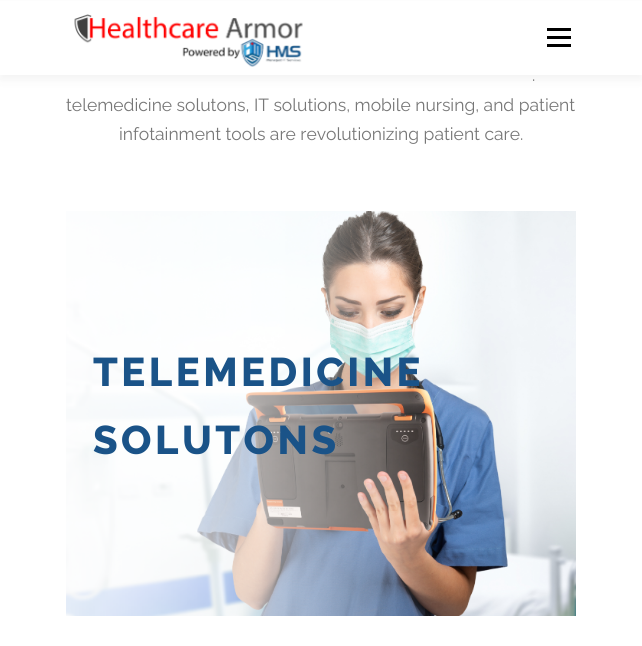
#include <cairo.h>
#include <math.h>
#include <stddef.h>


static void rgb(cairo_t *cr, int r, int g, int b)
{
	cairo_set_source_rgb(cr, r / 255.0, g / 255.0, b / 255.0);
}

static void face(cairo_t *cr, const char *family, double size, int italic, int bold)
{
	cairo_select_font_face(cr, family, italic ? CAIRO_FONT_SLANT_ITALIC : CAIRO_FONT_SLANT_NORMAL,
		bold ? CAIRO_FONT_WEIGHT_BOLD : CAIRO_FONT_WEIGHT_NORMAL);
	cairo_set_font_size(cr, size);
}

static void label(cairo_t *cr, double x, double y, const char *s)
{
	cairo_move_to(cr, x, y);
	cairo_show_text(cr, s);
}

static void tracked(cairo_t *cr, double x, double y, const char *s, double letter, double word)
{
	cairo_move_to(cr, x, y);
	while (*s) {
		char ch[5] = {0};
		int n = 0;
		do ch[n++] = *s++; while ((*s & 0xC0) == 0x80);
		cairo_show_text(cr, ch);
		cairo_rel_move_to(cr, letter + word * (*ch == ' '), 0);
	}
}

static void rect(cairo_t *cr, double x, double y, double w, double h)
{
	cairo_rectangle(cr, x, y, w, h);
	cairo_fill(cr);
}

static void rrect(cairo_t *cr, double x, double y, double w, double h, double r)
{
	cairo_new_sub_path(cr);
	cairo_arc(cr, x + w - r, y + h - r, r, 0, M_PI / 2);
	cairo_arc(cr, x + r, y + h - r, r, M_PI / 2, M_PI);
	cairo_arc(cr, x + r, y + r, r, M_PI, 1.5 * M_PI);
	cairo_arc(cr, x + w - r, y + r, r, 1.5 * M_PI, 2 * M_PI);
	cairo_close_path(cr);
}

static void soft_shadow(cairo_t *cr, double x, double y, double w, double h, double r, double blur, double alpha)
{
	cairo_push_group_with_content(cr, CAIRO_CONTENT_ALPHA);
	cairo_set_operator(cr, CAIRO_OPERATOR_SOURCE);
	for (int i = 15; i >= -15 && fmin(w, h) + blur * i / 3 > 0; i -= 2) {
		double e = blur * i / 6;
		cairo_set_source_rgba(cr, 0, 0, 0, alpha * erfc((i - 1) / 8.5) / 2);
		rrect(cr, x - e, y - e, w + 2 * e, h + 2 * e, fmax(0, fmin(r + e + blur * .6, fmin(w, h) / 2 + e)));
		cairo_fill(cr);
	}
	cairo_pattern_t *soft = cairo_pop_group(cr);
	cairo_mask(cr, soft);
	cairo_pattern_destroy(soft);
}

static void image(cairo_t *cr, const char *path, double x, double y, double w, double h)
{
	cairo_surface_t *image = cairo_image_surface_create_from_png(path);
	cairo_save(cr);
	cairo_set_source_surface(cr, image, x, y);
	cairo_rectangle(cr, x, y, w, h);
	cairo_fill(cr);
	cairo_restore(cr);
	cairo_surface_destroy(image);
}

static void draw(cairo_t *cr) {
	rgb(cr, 255, 255, 255);
	cairo_paint(cr);
	rgb(cr, 50, 50, 50);
	soft_shadow(cr, 0, 5, 642, 75, 0, 5, 0.06);
	rgb(cr, 255, 255, 255);
	rect(cr, 0, 1, 642, 74);
	image(cr, "image0.png", 74, 14, 229, 53);
	rgb(cr, 0, 0, 0);
	rect(cr, 547, 36, 24, 3);
	rect(cr, 547, 28, 24, 3);
	rect(cr, 547, 44, 24, 3);
	face(cr, "Raleway", 17.5, 0, 0);
	rgb(cr, 119, 119, 119);
	label(cr, 532, 81, ".");
	label(cr, 66, 111, "telemedicine solutons, IT solutions, mobile nursing, and patient");
	label(cr, 119, 140, "infotainment tools are revolutionizing patient care.");
	image(cr, "image1.png", 66, 211, 510, 405);
	face(cr, "Raleway ExtraBold", 40, 0, 0);
	rgb(cr, 26, 83, 136);
	tracked(cr, 93, 386, "TELEMEDICINE", 3.5, 0);
	tracked(cr, 93, 454, "SOLUTONS", 3.5, 0);
}

int main(void) {
	cairo_surface_t *surface = cairo_image_surface_create(CAIRO_FORMAT_RGB24, 642, 646);
	cairo_t *cr = cairo_create(surface);
	cairo_font_options_t *options = cairo_font_options_create();
	cairo_font_options_set_hint_metrics(options, CAIRO_HINT_METRICS_OFF);
	cairo_font_options_set_hint_style(options, CAIRO_HINT_STYLE_NONE);
	cairo_set_font_options(cr, options);
	cairo_set_miter_limit(cr, 4);
	draw(cr);
	cairo_surface_write_to_png(surface, "render.png");
	cairo_font_options_destroy(options);
	cairo_destroy(cr);
	cairo_surface_destroy(surface);
	return 0;
}
